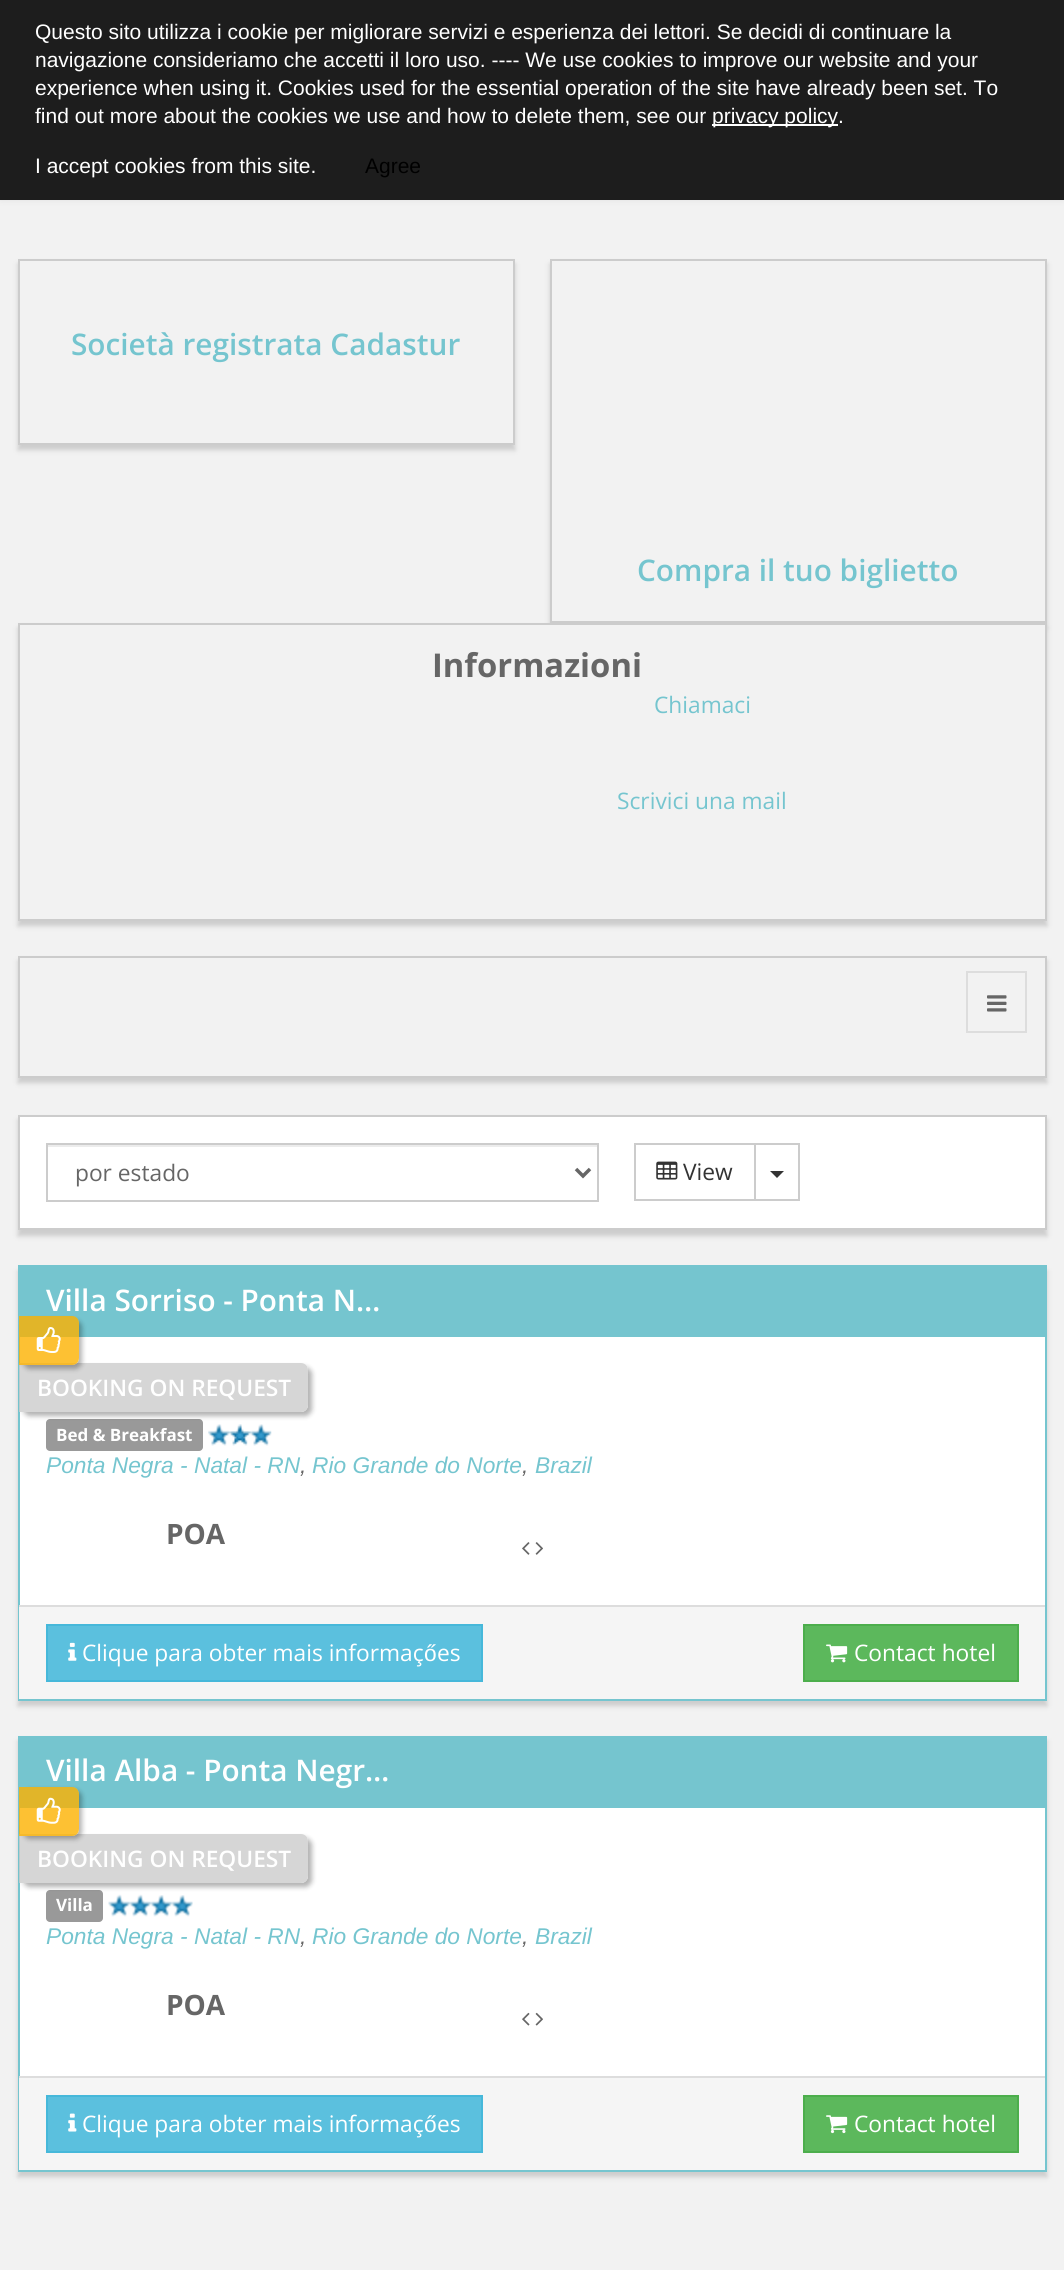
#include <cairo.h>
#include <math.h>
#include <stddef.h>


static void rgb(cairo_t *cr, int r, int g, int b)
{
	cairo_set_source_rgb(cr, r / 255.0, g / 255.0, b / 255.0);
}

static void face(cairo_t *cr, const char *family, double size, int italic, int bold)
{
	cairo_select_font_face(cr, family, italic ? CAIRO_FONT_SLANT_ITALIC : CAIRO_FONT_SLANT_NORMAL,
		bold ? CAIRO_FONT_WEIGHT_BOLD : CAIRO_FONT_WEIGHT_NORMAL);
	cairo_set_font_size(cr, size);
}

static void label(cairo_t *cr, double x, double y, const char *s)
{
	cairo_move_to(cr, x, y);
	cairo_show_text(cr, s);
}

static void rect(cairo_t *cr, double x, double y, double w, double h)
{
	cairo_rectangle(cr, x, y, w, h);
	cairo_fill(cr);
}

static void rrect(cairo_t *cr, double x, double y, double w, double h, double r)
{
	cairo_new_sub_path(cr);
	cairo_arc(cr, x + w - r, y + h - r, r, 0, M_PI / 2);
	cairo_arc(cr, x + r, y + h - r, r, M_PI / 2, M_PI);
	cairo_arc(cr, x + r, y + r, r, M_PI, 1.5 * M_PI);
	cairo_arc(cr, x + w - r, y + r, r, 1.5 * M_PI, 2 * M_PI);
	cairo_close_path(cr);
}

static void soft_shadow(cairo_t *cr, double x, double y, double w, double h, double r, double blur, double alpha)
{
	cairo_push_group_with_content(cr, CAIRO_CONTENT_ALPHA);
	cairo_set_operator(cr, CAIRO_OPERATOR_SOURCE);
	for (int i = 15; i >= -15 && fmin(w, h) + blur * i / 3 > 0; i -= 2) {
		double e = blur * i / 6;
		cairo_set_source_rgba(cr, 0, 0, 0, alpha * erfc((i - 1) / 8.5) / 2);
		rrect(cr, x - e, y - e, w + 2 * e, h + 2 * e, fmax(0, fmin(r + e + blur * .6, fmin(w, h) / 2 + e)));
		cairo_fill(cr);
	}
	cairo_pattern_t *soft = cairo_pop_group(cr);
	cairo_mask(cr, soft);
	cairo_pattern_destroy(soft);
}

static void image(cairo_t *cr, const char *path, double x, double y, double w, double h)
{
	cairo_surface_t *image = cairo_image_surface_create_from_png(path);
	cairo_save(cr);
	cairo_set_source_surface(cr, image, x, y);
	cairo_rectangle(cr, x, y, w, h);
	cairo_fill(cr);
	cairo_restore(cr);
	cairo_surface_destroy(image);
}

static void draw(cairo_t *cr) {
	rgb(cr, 242, 242, 242);
	cairo_paint(cr);
	rgb(cr, 12, 12, 12);
	soft_shadow(cr, 0, 4, 1064, 192, 0, 4.5, 0.2);
	rgb(cr, 29, 29, 29);
	rect(cr, 0, 0, 1064, 200);
	face(cr, "Liberation Sans", 21, 0, 0);
	rgb(cr, 255, 255, 255);
	label(cr, 35, 39, "Questo sito utilizza i cookie per migliorare servizi e esperienza dei lettori. Se decidi di continuare la");
	label(cr, 35, 67, "navigazione consideriamo che accetti il loro uso. ---- We use cookies to improve our website and your");
	label(cr, 35, 95, "experience when using it. Cookies used for the essential operation of the site have already been set. To");
	label(cr, 35, 123, "find out more about the cookies we use and how to delete them, see our");
	rect(cr, 712, 124, 126, 2);
	label(cr, 712, 123, "privacy policy.");
	label(cr, 35, 173, "I accept cookies from this site.");
	rgb(cr, 0, 0, 0);
	label(cr, 365, 173, "Agree");
	rgb(cr, 204, 204, 204);
	soft_shadow(cr, 18, 264, 497, 186, 0, 2.5, 1);
	rgb(cr, 242, 242, 242);
	cairo_rectangle(cr, 19, 260, 495, 184);
	cairo_fill_preserve(cr);
	rgb(cr, 204, 204, 204);
	cairo_stroke(cr);
	face(cr, "Open Sans SemiBold", 29.75, 0, 0);
	rgb(cr, 117, 197, 207);
	label(cr, 71, 355, "Società registrata Cadastur");
	rgb(cr, 204, 204, 204);
	soft_shadow(cr, 550, 264, 497, 364, 0, 2.5, 1);
	rgb(cr, 242, 242, 242);
	cairo_rectangle(cr, 551, 260, 495, 362);
	cairo_fill_preserve(cr);
	rgb(cr, 204, 204, 204);
	cairo_stroke(cr);
	rgb(cr, 117, 197, 207);
	label(cr, 637, 581, "Compra il tuo biglietto");
	rgb(cr, 204, 204, 204);
	soft_shadow(cr, 18, 628, 1029, 298, 0, 2.5, 1);
	rgb(cr, 242, 242, 242);
	cairo_rectangle(cr, 19, 624, 1027, 296);
	cairo_fill_preserve(cr);
	rgb(cr, 204, 204, 204);
	cairo_stroke(cr);
	face(cr, "Open Sans", 32.75, 0, 1);
	rgb(cr, 102, 102, 102);
	label(cr, 432, 677, "Informazioni");
	face(cr, "Open Sans", 22.75, 0, 0);
	rgb(cr, 117, 197, 207);
	label(cr, 654, 713, "Chiamaci");
	label(cr, 617, 809, "Scrivici una mail");
	rgb(cr, 204, 204, 204);
	soft_shadow(cr, 18, 961, 1029, 122, 0, 2.5, 1);
	rgb(cr, 242, 242, 242);
	cairo_rectangle(cr, 19, 957, 1027, 120);
	cairo_fill_preserve(cr);
	rgb(cr, 204, 204, 204);
	cairo_stroke(cr);
	cairo_rectangle(cr, 967, 972, 59, 60);
	rgb(cr, 221, 221, 221);
	cairo_stroke(cr);
	image(cr, "image0.png", 987, 995, 20, 17);
	rgb(cr, 204, 204, 204);
	soft_shadow(cr, 18, 1120, 1029, 116, 0, 2.5, 1);
	rgb(cr, 255, 255, 255);
	cairo_rectangle(cr, 19, 1116, 1027, 113);
	cairo_fill_preserve(cr);
	rgb(cr, 204, 204, 204);
	cairo_stroke(cr);
	rgb(cr, 236, 236, 236);
	rect(cr, 47, 1145, 550, 2);
	cairo_rectangle(cr, 47, 1144, 551, 57);
	rgb(cr, 204, 204, 204);
	cairo_stroke(cr);
	cairo_new_path(cr);
	cairo_move_to(cr, 576, 1169);
	cairo_line_to(cr, 583, 1176);
	cairo_line_to(cr, 590, 1169);
	rgb(cr, 102, 102, 102);
	cairo_set_line_width(cr, 3.5);
	cairo_stroke(cr);
	label(cr, 75, 1181, "por estado");
	cairo_rectangle(cr, 635, 1144, 120, 56);
	rgb(cr, 204, 204, 204);
	cairo_set_line_width(cr, 2);
	cairo_stroke(cr);
	image(cr, "image1.png", 656, 1161, 22, 19);
	rgb(cr, 51, 51, 51);
	label(cr, 683, 1180, "View");
	cairo_rectangle(cr, 755, 1144, 44, 56);
	rgb(cr, 204, 204, 204);
	cairo_stroke(cr);
	rgb(cr, 51, 51, 51);
	cairo_new_path(cr);
	cairo_move_to(cr, 770, 1171);
	cairo_line_to(cr, 784, 1171);
	cairo_line_to(cr, 777, 1178);
	cairo_close_path(cr);
	cairo_fill(cr);
	rgb(cr, 204, 204, 204);
	soft_shadow(cr, 18, 1271, 1029, 435, 0, 2.5, 1);
	rgb(cr, 255, 255, 255);
	rect(cr, 20, 1337, 1025, 268);
	cairo_rectangle(cr, 19, 1266, 1027, 434);
	rgb(cr, 117, 197, 207);
	cairo_stroke(cr);
	rect(cr, 20, 1267, 1025, 70);
	face(cr, "Open Sans SemiBold", 29.75, 0, 0);
	rgb(cr, 255, 255, 255);
	label(cr, 46, 1311, "Villa Sorriso - Ponta N…");
	rgb(cr, 153, 153, 153);
	rrect(cr, 46, 1419, 157, 32, 4);
	cairo_fill(cr);
	image(cr, "image3.png", 208, 1424, 22, 22);
	image(cr, "image4.png", 229, 1424, 22, 22);
	image(cr, "image5.png", 250, 1424, 22, 22);
	cairo_save(cr);
	cairo_set_fill_rule(cr, CAIRO_FILL_RULE_EVEN_ODD);
	cairo_new_path(cr);
	cairo_move_to(cr, 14, 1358);
	cairo_line_to(cr, 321, 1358);
	cairo_line_to(cr, 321, 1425);
	cairo_line_to(cr, 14, 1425);
	cairo_close_path(cr);
	cairo_move_to(cr, 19, 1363);
	cairo_line_to(cr, 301, 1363);
	cairo_curve_to(cr, 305, 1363, 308, 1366, 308, 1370);
	cairo_line_to(cr, 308, 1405);
	cairo_curve_to(cr, 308, 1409, 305, 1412, 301, 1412);
	cairo_line_to(cr, 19, 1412);
	cairo_close_path(cr);
	cairo_clip(cr);
	rgb(cr, 0, 0, 0);
	soft_shadow(cr, 23, 1367, 289, 49, 7, 2.5, 0.3);
	cairo_restore(cr);
	cairo_set_source_rgba(cr, 0.8, 0.8, 0.8, 0.8);
	cairo_new_path(cr);
	cairo_move_to(cr, 19, 1363);
	cairo_line_to(cr, 301, 1363);
	cairo_curve_to(cr, 305, 1363, 308, 1366, 308, 1370);
	cairo_line_to(cr, 308, 1405);
	cairo_curve_to(cr, 308, 1409, 305, 1412, 301, 1412);
	cairo_line_to(cr, 19, 1412);
	cairo_close_path(cr);
	cairo_fill(cr);
	cairo_save(cr);
	cairo_set_fill_rule(cr, CAIRO_FILL_RULE_EVEN_ODD);
	cairo_new_path(cr);
	cairo_move_to(cr, 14, 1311);
	cairo_line_to(cr, 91, 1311);
	cairo_line_to(cr, 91, 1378);
	cairo_line_to(cr, 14, 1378);
	cairo_close_path(cr);
	cairo_move_to(cr, 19, 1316);
	cairo_line_to(cr, 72, 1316);
	cairo_curve_to(cr, 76, 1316, 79, 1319, 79, 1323);
	cairo_line_to(cr, 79, 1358);
	cairo_curve_to(cr, 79, 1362, 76, 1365, 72, 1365);
	cairo_line_to(cr, 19, 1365);
	cairo_close_path(cr);
	cairo_clip(cr);
	rgb(cr, 0, 0, 0);
	soft_shadow(cr, 23, 1320, 59, 49, 7, 2.5, 0.3);
	cairo_restore(cr);
	cairo_set_source_rgba(cr, 0.988, 0.698, 0, 0.8);
	cairo_new_path(cr);
	cairo_move_to(cr, 19, 1316);
	cairo_line_to(cr, 72, 1316);
	cairo_curve_to(cr, 76, 1316, 79, 1319, 79, 1323);
	cairo_line_to(cr, 79, 1358);
	cairo_curve_to(cr, 79, 1362, 76, 1365, 72, 1365);
	cairo_line_to(cr, 19, 1365);
	cairo_close_path(cr);
	cairo_fill(cr);
	image(cr, "image2.png", 36, 1327, 25, 26);
	face(cr, "Open Sans SemiBold", 22.75, 0, 0);
	rgb(cr, 255, 255, 255);
	label(cr, 37, 1396, "BOOKING ON REQUEST");
	face(cr, "Open Sans", 17, 0, 1);
	label(cr, 56, 1441, "Bed & Breakfast");
	face(cr, "Liberation Sans", 22.75, 1, 0);
	rgb(cr, 117, 197, 207);
	label(cr, 46, 1473, "Ponta Negra - Natal - RN");
	rgb(cr, 102, 102, 102);
	label(cr, 300, 1473, ",");
	rgb(cr, 117, 197, 207);
	label(cr, 312, 1473, "Rio Grande do Norte");
	rgb(cr, 102, 102, 102);
	label(cr, 522, 1473, ",");
	rgb(cr, 117, 197, 207);
	label(cr, 535, 1473, "Brazil");
	face(cr, "Open Sans", 28, 0, 1);
	rgb(cr, 102, 102, 102);
	label(cr, 166, 1544, "POA");
	image(cr, "image6.png", 522, 1542, 8, 13);
	image(cr, "image7.png", 535, 1542, 8, 13);
	rgb(cr, 245, 245, 245);
	rect(cr, 19, 1607, 1026, 92);
	rgb(cr, 221, 221, 221);
	rect(cr, 19, 1605, 1026, 2);
	rgb(cr, 91, 192, 222);
	cairo_rectangle(cr, 47, 1625, 435, 56);
	cairo_fill_preserve(cr);
	rgb(cr, 70, 184, 218);
	cairo_stroke(cr);
	image(cr, "image8.png", 68, 1642, 9, 19);
	face(cr, "Open Sans", 22.75, 0, 0);
	rgb(cr, 255, 255, 255);
	label(cr, 82, 1661, "Clique para obter mais informaç");
	face(cr, "Liberation Sans", 22.75, 0, 0);
	label(cr, 424, 1661, "ő");
	face(cr, "Open Sans", 22.75, 0, 0);
	label(cr, 437, 1661, "es");
	rgb(cr, 92, 184, 92);
	cairo_rectangle(cr, 804, 1625, 214, 56);
	cairo_fill_preserve(cr);
	rgb(cr, 76, 174, 76);
	cairo_stroke(cr);
	image(cr, "image9.png", 826, 1644, 22, 19);
	rgb(cr, 255, 255, 255);
	label(cr, 854, 1661, "Contact hotel");
	rgb(cr, 204, 204, 204);
	soft_shadow(cr, 18, 1741, 1029, 436, 0, 2.5, 1);
	rgb(cr, 255, 255, 255);
	rect(cr, 20, 1808, 1025, 268);
	cairo_rectangle(cr, 19, 1737, 1027, 434);
	rgb(cr, 117, 197, 207);
	cairo_stroke(cr);
	rect(cr, 20, 1738, 1025, 70);
	face(cr, "Open Sans SemiBold", 29.75, 0, 0);
	rgb(cr, 255, 255, 255);
	label(cr, 46, 1781, "Villa Alba - Ponta Negr…");
	rgb(cr, 153, 153, 153);
	rrect(cr, 46, 1890, 57, 32, 4);
	cairo_fill(cr);
	image(cr, "image11.png", 108, 1894, 22, 23);
	image(cr, "image12.png", 129, 1894, 22, 23);
	image(cr, "image13.png", 150, 1895, 22, 22);
	image(cr, "image13.png", 171, 1895, 22, 22);
	cairo_save(cr);
	cairo_set_fill_rule(cr, CAIRO_FILL_RULE_EVEN_ODD);
	cairo_new_path(cr);
	cairo_move_to(cr, 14, 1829);
	cairo_line_to(cr, 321, 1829);
	cairo_line_to(cr, 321, 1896);
	cairo_line_to(cr, 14, 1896);
	cairo_close_path(cr);
	cairo_move_to(cr, 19, 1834);
	cairo_line_to(cr, 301, 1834);
	cairo_curve_to(cr, 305, 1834, 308, 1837, 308, 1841);
	cairo_line_to(cr, 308, 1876);
	cairo_curve_to(cr, 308, 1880, 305, 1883, 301, 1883);
	cairo_line_to(cr, 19, 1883);
	cairo_close_path(cr);
	cairo_clip(cr);
	rgb(cr, 0, 0, 0);
	soft_shadow(cr, 23, 1838, 289, 49, 7, 2.5, 0.3);
	cairo_restore(cr);
	cairo_set_source_rgba(cr, 0.8, 0.8, 0.8, 0.8);
	cairo_new_path(cr);
	cairo_move_to(cr, 19, 1834);
	cairo_line_to(cr, 301, 1834);
	cairo_curve_to(cr, 305, 1834, 308, 1837, 308, 1841);
	cairo_line_to(cr, 308, 1876);
	cairo_curve_to(cr, 308, 1880, 305, 1883, 301, 1883);
	cairo_line_to(cr, 19, 1883);
	cairo_close_path(cr);
	cairo_fill(cr);
	cairo_save(cr);
	cairo_set_fill_rule(cr, CAIRO_FILL_RULE_EVEN_ODD);
	cairo_new_path(cr);
	cairo_move_to(cr, 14, 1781);
	cairo_line_to(cr, 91, 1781);
	cairo_line_to(cr, 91, 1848);
	cairo_line_to(cr, 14, 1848);
	cairo_close_path(cr);
	cairo_move_to(cr, 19, 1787);
	cairo_line_to(cr, 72, 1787);
	cairo_curve_to(cr, 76, 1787, 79, 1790, 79, 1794);
	cairo_line_to(cr, 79, 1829);
	cairo_curve_to(cr, 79, 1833, 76, 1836, 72, 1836);
	cairo_line_to(cr, 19, 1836);
	cairo_close_path(cr);
	cairo_clip(cr);
	rgb(cr, 0, 0, 0);
	soft_shadow(cr, 23, 1790, 59, 49, 7, 2.5, 0.3);
	cairo_restore(cr);
	cairo_set_source_rgba(cr, 0.988, 0.698, 0, 0.8);
	cairo_new_path(cr);
	cairo_move_to(cr, 19, 1787);
	cairo_line_to(cr, 72, 1787);
	cairo_curve_to(cr, 76, 1787, 79, 1790, 79, 1794);
	cairo_line_to(cr, 79, 1829);
	cairo_curve_to(cr, 79, 1833, 76, 1836, 72, 1836);
	cairo_line_to(cr, 19, 1836);
	cairo_close_path(cr);
	cairo_fill(cr);
	image(cr, "image10.png", 36, 1797, 25, 27);
	face(cr, "Open Sans SemiBold", 22.75, 0, 0);
	rgb(cr, 255, 255, 255);
	label(cr, 37, 1867, "BOOKING ON REQUEST");
	face(cr, "Open Sans", 17, 0, 1);
	label(cr, 56, 1911, "Villa");
	face(cr, "Liberation Sans", 22.75, 1, 0);
	rgb(cr, 117, 197, 207);
	label(cr, 46, 1944, "Ponta Negra - Natal - RN");
	rgb(cr, 102, 102, 102);
	label(cr, 300, 1944, ",");
	rgb(cr, 117, 197, 207);
	label(cr, 312, 1944, "Rio Grande do Norte");
	rgb(cr, 102, 102, 102);
	label(cr, 522, 1944, ",");
	rgb(cr, 117, 197, 207);
	label(cr, 535, 1944, "Brazil");
	face(cr, "Open Sans", 28, 0, 1);
	rgb(cr, 102, 102, 102);
	label(cr, 166, 2015, "POA");
	image(cr, "image14.png", 522, 2012, 8, 14);
	image(cr, "image15.png", 535, 2012, 8, 14);
	rgb(cr, 245, 245, 245);
	rect(cr, 19, 2078, 1026, 92);
	rgb(cr, 221, 221, 221);
	rect(cr, 19, 2076, 1026, 2);
	rgb(cr, 91, 192, 222);
	cairo_rectangle(cr, 47, 2096, 435, 56);
	cairo_fill_preserve(cr);
	rgb(cr, 70, 184, 218);
	cairo_stroke(cr);
	image(cr, "image16.png", 68, 2113, 9, 19);
	face(cr, "Open Sans", 22.75, 0, 0);
	rgb(cr, 255, 255, 255);
	label(cr, 82, 2132, "Clique para obter mais informaç");
	face(cr, "Liberation Sans", 22.75, 0, 0);
	label(cr, 424, 2132, "ő");
	face(cr, "Open Sans", 22.75, 0, 0);
	label(cr, 437, 2132, "es");
	rgb(cr, 92, 184, 92);
	cairo_rectangle(cr, 804, 2096, 214, 56);
	cairo_fill_preserve(cr);
	rgb(cr, 76, 174, 76);
	cairo_stroke(cr);
	image(cr, "image17.png", 826, 2115, 22, 19);
	rgb(cr, 255, 255, 255);
	label(cr, 854, 2132, "Contact hotel");
}

int main(void) {
	cairo_surface_t *surface = cairo_image_surface_create(CAIRO_FORMAT_RGB24, 1064, 2270);
	cairo_t *cr = cairo_create(surface);
	cairo_font_options_t *options = cairo_font_options_create();
	cairo_font_options_set_hint_metrics(options, CAIRO_HINT_METRICS_OFF);
	cairo_font_options_set_hint_style(options, CAIRO_HINT_STYLE_NONE);
	cairo_set_font_options(cr, options);
	cairo_set_miter_limit(cr, 4);
	draw(cr);
	cairo_surface_write_to_png(surface, "render.png");
	cairo_font_options_destroy(options);
	cairo_destroy(cr);
	cairo_surface_destroy(surface);
	return 0;
}
